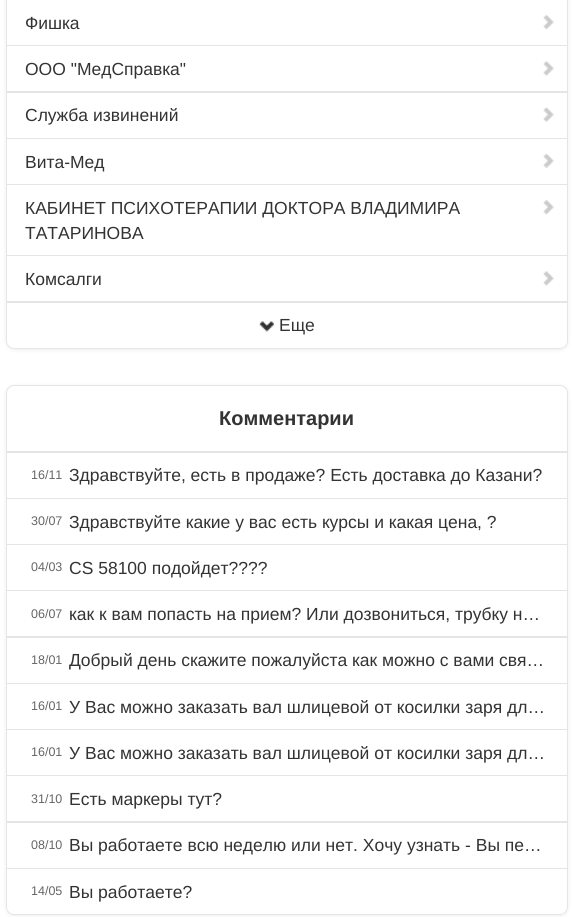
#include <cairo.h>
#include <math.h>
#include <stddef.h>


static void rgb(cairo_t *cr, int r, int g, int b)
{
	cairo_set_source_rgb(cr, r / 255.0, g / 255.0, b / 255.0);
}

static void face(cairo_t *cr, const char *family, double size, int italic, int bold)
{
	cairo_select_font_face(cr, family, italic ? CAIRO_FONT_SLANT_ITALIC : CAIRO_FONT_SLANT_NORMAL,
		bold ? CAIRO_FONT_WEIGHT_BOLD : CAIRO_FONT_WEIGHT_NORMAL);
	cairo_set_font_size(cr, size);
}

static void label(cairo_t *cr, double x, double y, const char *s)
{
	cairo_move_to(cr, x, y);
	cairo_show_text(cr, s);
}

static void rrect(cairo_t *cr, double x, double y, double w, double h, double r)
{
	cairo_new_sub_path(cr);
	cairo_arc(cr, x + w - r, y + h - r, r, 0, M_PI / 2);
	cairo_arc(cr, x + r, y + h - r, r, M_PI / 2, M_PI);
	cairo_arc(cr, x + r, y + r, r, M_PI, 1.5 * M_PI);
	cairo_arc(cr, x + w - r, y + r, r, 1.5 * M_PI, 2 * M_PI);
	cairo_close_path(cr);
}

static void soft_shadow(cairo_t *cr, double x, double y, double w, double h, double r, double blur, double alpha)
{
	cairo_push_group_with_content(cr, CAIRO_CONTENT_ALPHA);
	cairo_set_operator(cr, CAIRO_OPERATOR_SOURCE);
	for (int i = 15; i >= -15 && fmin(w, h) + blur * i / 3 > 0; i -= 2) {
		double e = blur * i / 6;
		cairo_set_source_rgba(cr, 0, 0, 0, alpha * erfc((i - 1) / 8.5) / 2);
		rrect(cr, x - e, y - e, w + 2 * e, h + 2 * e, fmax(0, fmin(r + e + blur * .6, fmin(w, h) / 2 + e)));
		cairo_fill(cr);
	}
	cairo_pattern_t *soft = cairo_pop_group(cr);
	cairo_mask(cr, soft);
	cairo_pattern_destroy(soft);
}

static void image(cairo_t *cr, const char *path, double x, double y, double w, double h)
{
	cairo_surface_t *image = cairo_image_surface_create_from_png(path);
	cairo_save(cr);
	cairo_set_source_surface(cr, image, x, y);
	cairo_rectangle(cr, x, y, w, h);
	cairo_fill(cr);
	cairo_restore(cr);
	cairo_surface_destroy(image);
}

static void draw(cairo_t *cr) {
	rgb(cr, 255, 255, 255);
	cairo_paint(cr);
	rgb(cr, 0, 0, 0);
	soft_shadow(cr, 6, -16, 562, 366, 8, 2.5, 0.07);
	rgb(cr, 255, 255, 255);
	rrect(cr, 6, -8, 562, 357, 8);
	cairo_fill(cr);
	cairo_rectangle(cr, 6.5, -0.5, 561, 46);
	rgb(cr, 229, 229, 229);
	cairo_set_line_width(cr, 1);
	cairo_stroke(cr);
	face(cr, "Liberation Sans", 17.5, 0, 0);
	rgb(cr, 51, 51, 51);
	label(cr, 25, 29, "Фишка");
	image(cr, "image0.png", 543, 15, 11, 15);
	cairo_rectangle(cr, 6.5, 45.5, 561, 47);
	rgb(cr, 229, 229, 229);
	cairo_stroke(cr);
	rgb(cr, 51, 51, 51);
	label(cr, 25, 75, "ООО \"МедСправка\"");
	image(cr, "image1.png", 543, 61, 11, 15);
	cairo_rectangle(cr, 6.5, 91.5, 561, 47);
	rgb(cr, 229, 229, 229);
	cairo_stroke(cr);
	rgb(cr, 51, 51, 51);
	label(cr, 25, 121, "Служба извинений");
	image(cr, "image2.png", 543, 107, 11, 15);
	cairo_rectangle(cr, 6.5, 138.5, 561, 46);
	rgb(cr, 229, 229, 229);
	cairo_stroke(cr);
	rgb(cr, 51, 51, 51);
	label(cr, 25, 168, "Вита-Мед");
	image(cr, "image3.png", 543, 154, 11, 14);
	cairo_rectangle(cr, 6.5, 184.5, 561, 71);
	rgb(cr, 229, 229, 229);
	cairo_stroke(cr);
	rgb(cr, 51, 51, 51);
	label(cr, 25, 214, "КАБИНЕТ ПСИХОТЕРАПИИ ДОКТОРА ВЛАДИМИРА");
	image(cr, "image0.png", 543, 200, 11, 15);
	label(cr, 25, 239, "ТАТАРИНОВА");
	cairo_rectangle(cr, 6.5, 255.5, 561, 47);
	rgb(cr, 229, 229, 229);
	cairo_stroke(cr);
	rgb(cr, 51, 51, 51);
	label(cr, 25, 285, "Комсалги");
	image(cr, "image1.png", 543, 271, 11, 15);
	cairo_new_path(cr);
	cairo_move_to(cr, 6.5, 301.5);
	cairo_line_to(cr, 567.5, 301.5);
	cairo_line_to(cr, 567.5, 341);
	cairo_curve_to(cr, 567.5, 345, 564, 348.5, 560, 348.5);
	cairo_line_to(cr, 14, 348.5);
	cairo_curve_to(cr, 10, 348.5, 6.5, 345, 6.5, 341);
	cairo_close_path(cr);
	rgb(cr, 229, 229, 229);
	cairo_stroke(cr);
	image(cr, "image4.png", 259, 321, 15, 11);
	rgb(cr, 51, 51, 51);
	label(cr, 279, 331, "Еще");
	rgb(cr, 0, 0, 0);
	soft_shadow(cr, 6, 386, 562, 530, 8, 2.5, 0.07);
	rgb(cr, 255, 255, 255);
	rrect(cr, 6, 385, 562, 530, 8);
	cairo_fill(cr);
	cairo_new_path(cr);
	cairo_move_to(cr, 14, 385.5);
	cairo_line_to(cr, 560, 385.5);
	cairo_curve_to(cr, 564, 385.5, 567.5, 389, 567.5, 393);
	cairo_line_to(cr, 567.5, 452.5);
	cairo_line_to(cr, 6.5, 452.5);
	cairo_line_to(cr, 6.5, 393);
	cairo_curve_to(cr, 6.5, 389, 10, 385.5, 14, 385.5);
	cairo_close_path(cr);
	rgb(cr, 229, 229, 229);
	cairo_stroke(cr);
	face(cr, "Liberation Sans", 20, 0, 1);
	rgb(cr, 51, 51, 51);
	label(cr, 219, 425, "Комментарии");
	cairo_rectangle(cr, 6.5, 451.5, 561, 47);
	rgb(cr, 229, 229, 229);
	cairo_stroke(cr);
	face(cr, "Liberation Sans", 12.5, 0, 0);
	rgb(cr, 102, 102, 102);
	label(cr, 31, 479, "16/11");
	face(cr, "Liberation Sans", 17.5, 0, 0);
	rgb(cr, 51, 51, 51);
	label(cr, 69, 481, "Здравствуйте, есть в продаже? Есть доставка до Казани?");
	cairo_rectangle(cr, 6.5, 498.5, 561, 46);
	rgb(cr, 229, 229, 229);
	cairo_stroke(cr);
	face(cr, "Liberation Sans", 12.5, 0, 0);
	rgb(cr, 102, 102, 102);
	label(cr, 31, 525, "30/07");
	face(cr, "Liberation Sans", 17.5, 0, 0);
	rgb(cr, 51, 51, 51);
	label(cr, 69, 528, "Здравствуйте какие у вас есть курсы и какая цена, ?");
	cairo_rectangle(cr, 6.5, 544.5, 561, 46);
	rgb(cr, 229, 229, 229);
	cairo_stroke(cr);
	face(cr, "Liberation Sans", 12.5, 0, 0);
	rgb(cr, 102, 102, 102);
	label(cr, 31, 571, "04/03");
	face(cr, "Liberation Sans", 17.5, 0, 0);
	rgb(cr, 51, 51, 51);
	label(cr, 69, 574, "CS 58100 подойдет?\077?\077");
	cairo_rectangle(cr, 6.5, 590.5, 561, 47);
	rgb(cr, 229, 229, 229);
	cairo_stroke(cr);
	face(cr, "Liberation Sans", 12.5, 0, 0);
	rgb(cr, 102, 102, 102);
	label(cr, 31, 618, "06/07");
	face(cr, "Liberation Sans", 17.5, 0, 0);
	rgb(cr, 51, 51, 51);
	label(cr, 69, 620, "как к вам попасть на прием? Или дозвониться, трубку н…");
	cairo_rectangle(cr, 6.5, 636.5, 561, 47);
	rgb(cr, 229, 229, 229);
	cairo_stroke(cr);
	face(cr, "Liberation Sans", 12.5, 0, 0);
	rgb(cr, 102, 102, 102);
	label(cr, 31, 664, "18/01");
	cairo_save(cr);
	cairo_rectangle(cr, 69, 648, 480, 25);
	cairo_clip(cr);
	face(cr, "Liberation Sans", 17.5, 0, 0);
	rgb(cr, 51, 51, 51);
	label(cr, 69, 666, "Добрый день скажите пожалуйста как можно с вами свя…");
	cairo_restore(cr);
	cairo_rectangle(cr, 6.5, 683.5, 561, 46);
	rgb(cr, 229, 229, 229);
	cairo_stroke(cr);
	rgb(cr, 102, 102, 102);
	label(cr, 31, 710, "16/01");
	face(cr, "Liberation Sans", 17.5, 0, 0);
	rgb(cr, 51, 51, 51);
	label(cr, 69, 713, "У Вас можно заказать вал шлицевой от косилки заря дл…");
	cairo_rectangle(cr, 6.5, 729.5, 561, 46);
	rgb(cr, 229, 229, 229);
	cairo_stroke(cr);
	face(cr, "Liberation Sans", 12.5, 0, 0);
	rgb(cr, 102, 102, 102);
	label(cr, 31, 756, "16/01");
	face(cr, "Liberation Sans", 17.5, 0, 0);
	rgb(cr, 51, 51, 51);
	label(cr, 69, 759, "У Вас можно заказать вал шлицевой от косилки заря дл…");
	cairo_rectangle(cr, 6.5, 775.5, 561, 47);
	rgb(cr, 229, 229, 229);
	cairo_stroke(cr);
	face(cr, "Liberation Sans", 12.5, 0, 0);
	rgb(cr, 102, 102, 102);
	label(cr, 31, 803, "31/10");
	face(cr, "Liberation Sans", 17.5, 0, 0);
	rgb(cr, 51, 51, 51);
	label(cr, 69, 805, "Есть маркеры тут?");
	cairo_rectangle(cr, 6.5, 821.5, 561, 47);
	rgb(cr, 229, 229, 229);
	cairo_stroke(cr);
	face(cr, "Liberation Sans", 12.5, 0, 0);
	rgb(cr, 102, 102, 102);
	label(cr, 31, 849, "08/10");
	face(cr, "Liberation Sans", 17.5, 0, 0);
	rgb(cr, 51, 51, 51);
	label(cr, 69, 851, "Вы работаете всю неделю или нет. Хочу узнать - Вы пе…");
	cairo_new_path(cr);
	cairo_move_to(cr, 6.5, 868.5);
	cairo_line_to(cr, 567.5, 868.5);
	cairo_line_to(cr, 567.5, 907);
	cairo_curve_to(cr, 567.5, 911, 564, 914.5, 560, 914.5);
	cairo_line_to(cr, 14, 914.5);
	cairo_curve_to(cr, 10, 914.5, 6.5, 911, 6.5, 907);
	cairo_close_path(cr);
	rgb(cr, 229, 229, 229);
	cairo_stroke(cr);
	face(cr, "Liberation Sans", 12.5, 0, 0);
	rgb(cr, 102, 102, 102);
	label(cr, 31, 895, "14/05");
	face(cr, "Liberation Sans", 17.5, 0, 0);
	rgb(cr, 51, 51, 51);
	label(cr, 69, 898, "Вы работаете?");
}

int main(void) {
	cairo_surface_t *surface = cairo_image_surface_create(CAIRO_FORMAT_RGB24, 573, 917);
	cairo_t *cr = cairo_create(surface);
	cairo_font_options_t *options = cairo_font_options_create();
	cairo_font_options_set_hint_metrics(options, CAIRO_HINT_METRICS_OFF);
	cairo_font_options_set_hint_style(options, CAIRO_HINT_STYLE_NONE);
	cairo_set_font_options(cr, options);
	cairo_set_miter_limit(cr, 4);
	draw(cr);
	cairo_surface_write_to_png(surface, "render.png");
	cairo_font_options_destroy(options);
	cairo_destroy(cr);
	cairo_surface_destroy(surface);
	return 0;
}
